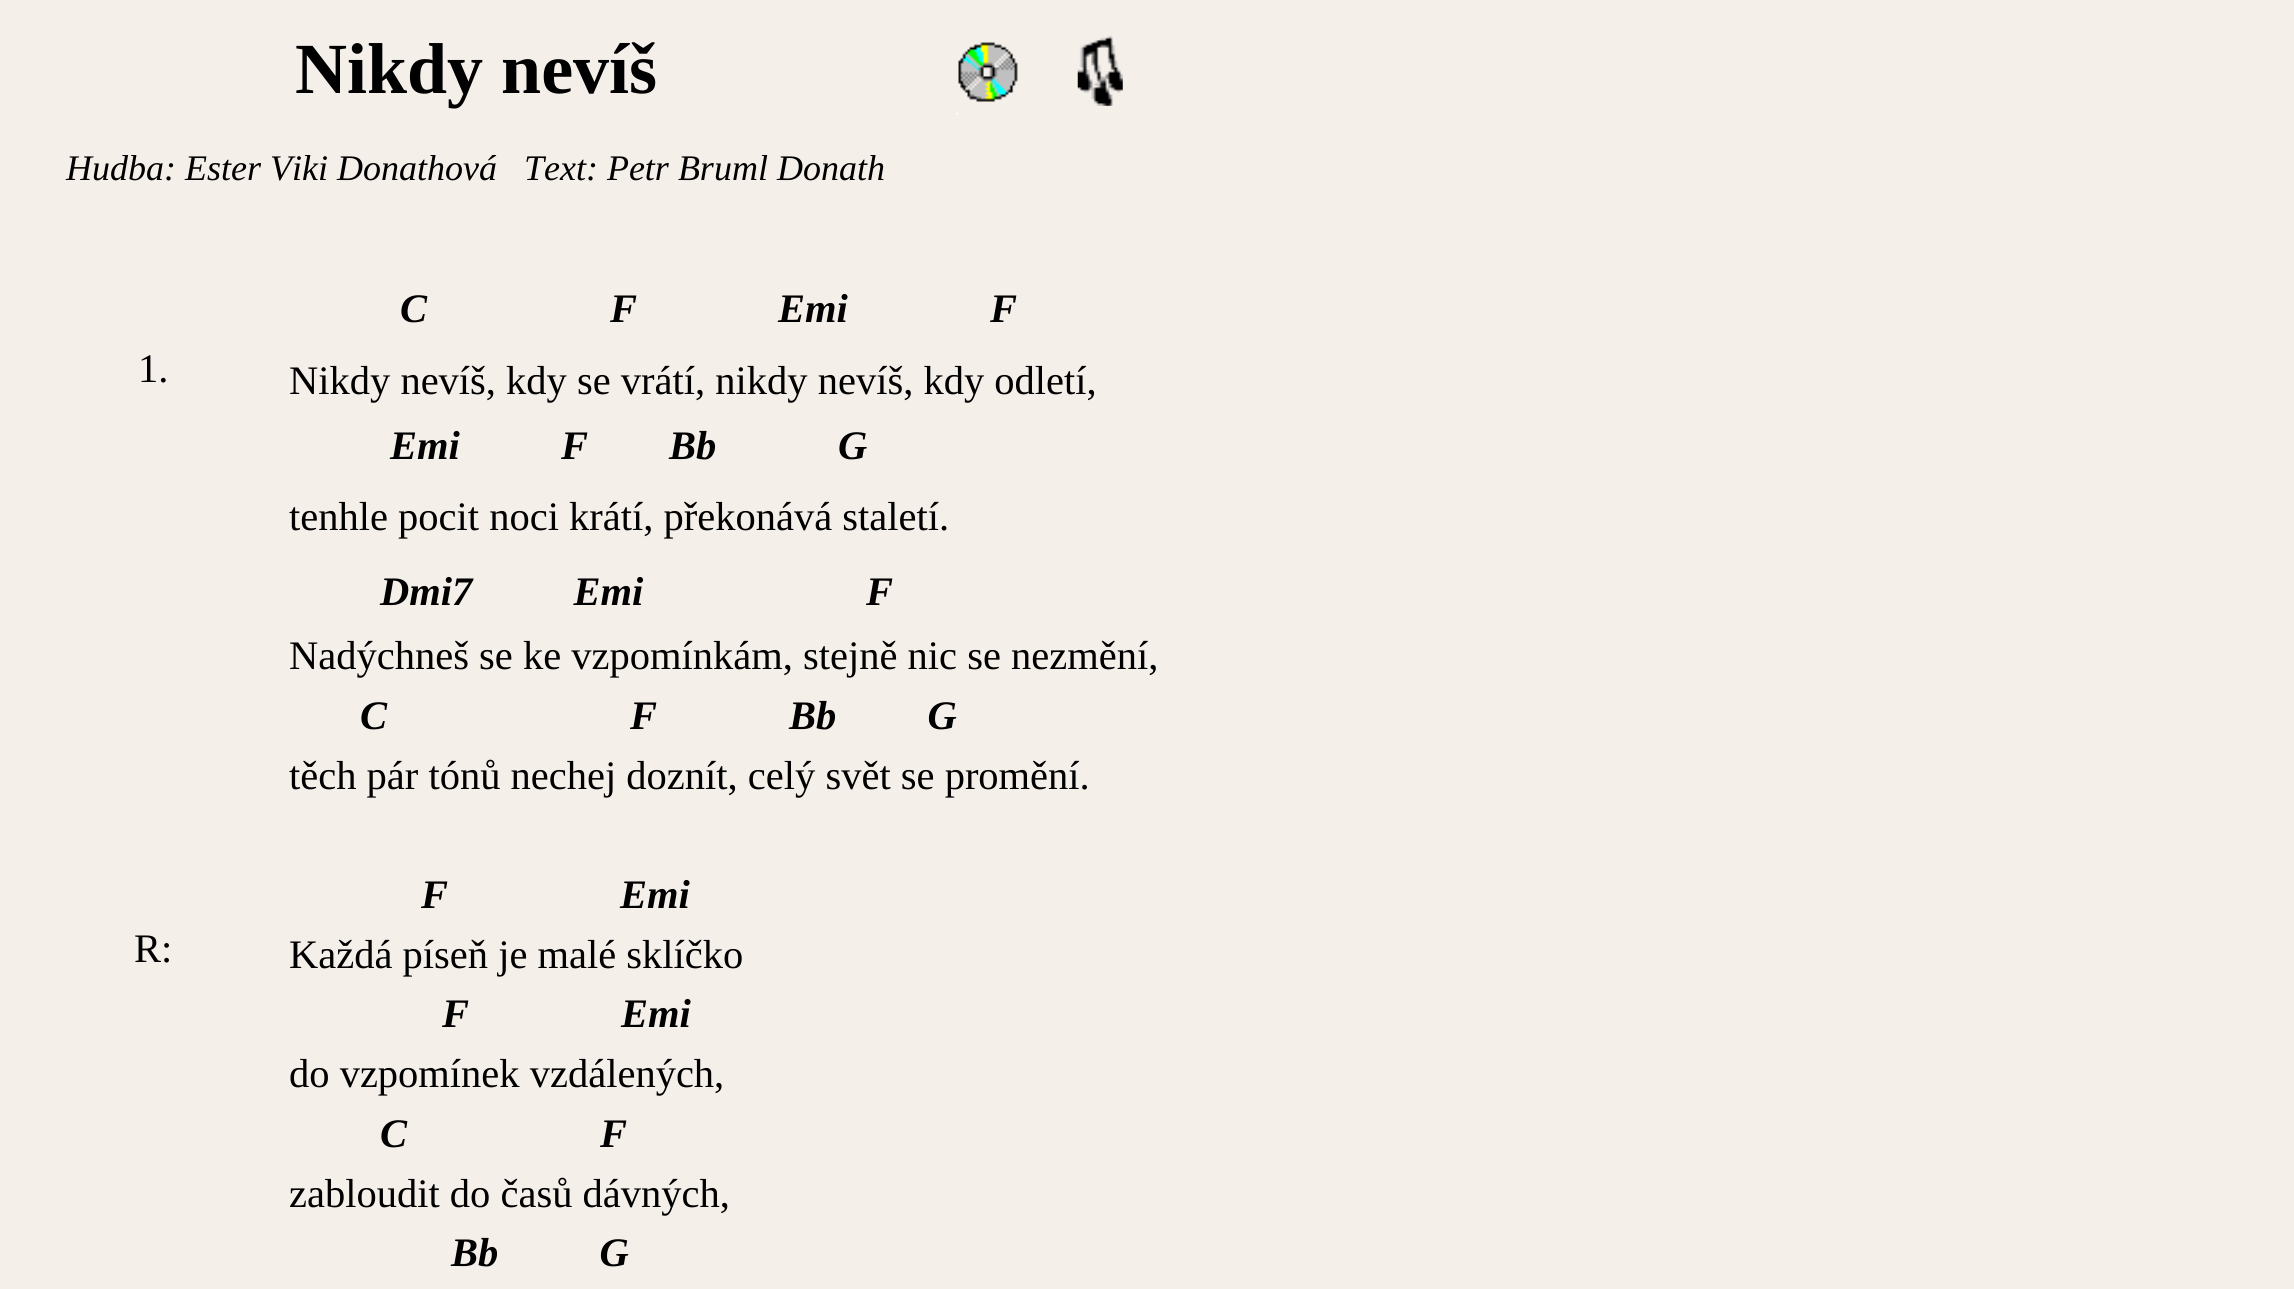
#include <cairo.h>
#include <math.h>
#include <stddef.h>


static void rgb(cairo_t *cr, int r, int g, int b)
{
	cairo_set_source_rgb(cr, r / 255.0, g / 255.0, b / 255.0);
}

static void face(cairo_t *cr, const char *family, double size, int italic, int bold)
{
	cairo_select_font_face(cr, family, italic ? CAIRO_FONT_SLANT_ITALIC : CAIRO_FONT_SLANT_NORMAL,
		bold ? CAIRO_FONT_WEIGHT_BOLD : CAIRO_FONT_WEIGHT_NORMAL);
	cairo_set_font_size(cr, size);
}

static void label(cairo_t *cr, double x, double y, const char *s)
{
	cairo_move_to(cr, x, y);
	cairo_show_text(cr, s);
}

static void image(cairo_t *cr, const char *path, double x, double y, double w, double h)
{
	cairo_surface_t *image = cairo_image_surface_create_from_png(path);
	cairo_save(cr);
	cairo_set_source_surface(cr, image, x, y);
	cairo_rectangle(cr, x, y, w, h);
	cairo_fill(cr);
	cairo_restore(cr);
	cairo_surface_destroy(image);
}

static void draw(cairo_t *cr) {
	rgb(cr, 245, 239, 234);
	cairo_paint(cr);
	face(cr, "Liberation Serif", 72, 0, 1);
	rgb(cr, 0, 0, 0);
	label(cr, 295, 93, "Nikdy nevíš");
	image(cr, "image0.png", 956, 42, 62, 73);
	image(cr, "image1.png", 1077, 35, 46, 71);
	face(cr, "Liberation Serif", 36, 1, 0);
	label(cr, 66, 180, "Hudba: Ester Viki Donathová   Text: Petr Bruml Donath");
	face(cr, "Liberation Serif", 40.5, 1, 1);
	label(cr, 400, 322, "C");
	label(cr, 610, 322, "F");
	label(cr, 778, 322, "Emi");
	label(cr, 990, 322, "F");
	face(cr, "Liberation Serif", 40.5, 0, 0);
	label(cr, 138, 382, "1.");
	label(cr, 289, 394, "Nikdy nevíš, kdy se vrátí, nikdy nevíš, kdy odletí,");
	face(cr, "Liberation Serif", 40.5, 1, 1);
	label(cr, 390, 459, "Emi");
	label(cr, 561, 459, "F        Bb");
	label(cr, 838, 459, "G");
	face(cr, "Liberation Serif", 40.5, 0, 0);
	label(cr, 289, 530, "tenhle pocit noci krátí, překonává staletí.");
	face(cr, "Liberation Serif", 40.5, 1, 1);
	label(cr, 380, 605, "Dmi7          Emi");
	label(cr, 866, 605, "F");
	face(cr, "Liberation Serif", 40.5, 0, 0);
	label(cr, 289, 669, "Nadýchneš se ke vzpomínkám, stejně nic se nezmění,");
	face(cr, "Liberation Serif", 40.5, 1, 1);
	label(cr, 360, 729, "C");
	label(cr, 630, 729, "F");
	label(cr, 789, 729, "Bb         G");
	face(cr, "Liberation Serif", 40.5, 0, 0);
	label(cr, 289, 789, "těch pár tónů nechej doznít, celý svět se promění.");
	face(cr, "Liberation Serif", 40.5, 1, 1);
	label(cr, 421, 908, "F");
	label(cr, 620, 908, "Emi");
	face(cr, "Liberation Serif", 40.5, 0, 0);
	label(cr, 134, 962, "R:");
	label(cr, 289, 968, "Každá píseň je malé sklíčko");
	face(cr, "Liberation Serif", 40.5, 1, 1);
	label(cr, 442, 1027, "F");
	label(cr, 621, 1027, "Emi");
	face(cr, "Liberation Serif", 40.5, 0, 0);
	label(cr, 289, 1087, "do vzpomínek vzdálených,");
	face(cr, "Liberation Serif", 40.5, 1, 1);
	label(cr, 380, 1147, "C");
	label(cr, 600, 1147, "F");
	face(cr, "Liberation Serif", 40.5, 0, 0);
	label(cr, 289, 1207, "zabloudit do časů dávných,");
	face(cr, "Liberation Serif", 40.5, 1, 1);
	label(cr, 451, 1266, "Bb          G");
}

int main(void) {
	cairo_surface_t *surface = cairo_image_surface_create(CAIRO_FORMAT_RGB24, 2294, 1289);
	cairo_t *cr = cairo_create(surface);
	cairo_font_options_t *options = cairo_font_options_create();
	cairo_font_options_set_hint_metrics(options, CAIRO_HINT_METRICS_OFF);
	cairo_font_options_set_hint_style(options, CAIRO_HINT_STYLE_NONE);
	cairo_set_font_options(cr, options);
	cairo_set_miter_limit(cr, 4);
	draw(cr);
	cairo_surface_write_to_png(surface, "render.png");
	cairo_font_options_destroy(options);
	cairo_destroy(cr);
	cairo_surface_destroy(surface);
	return 0;
}
